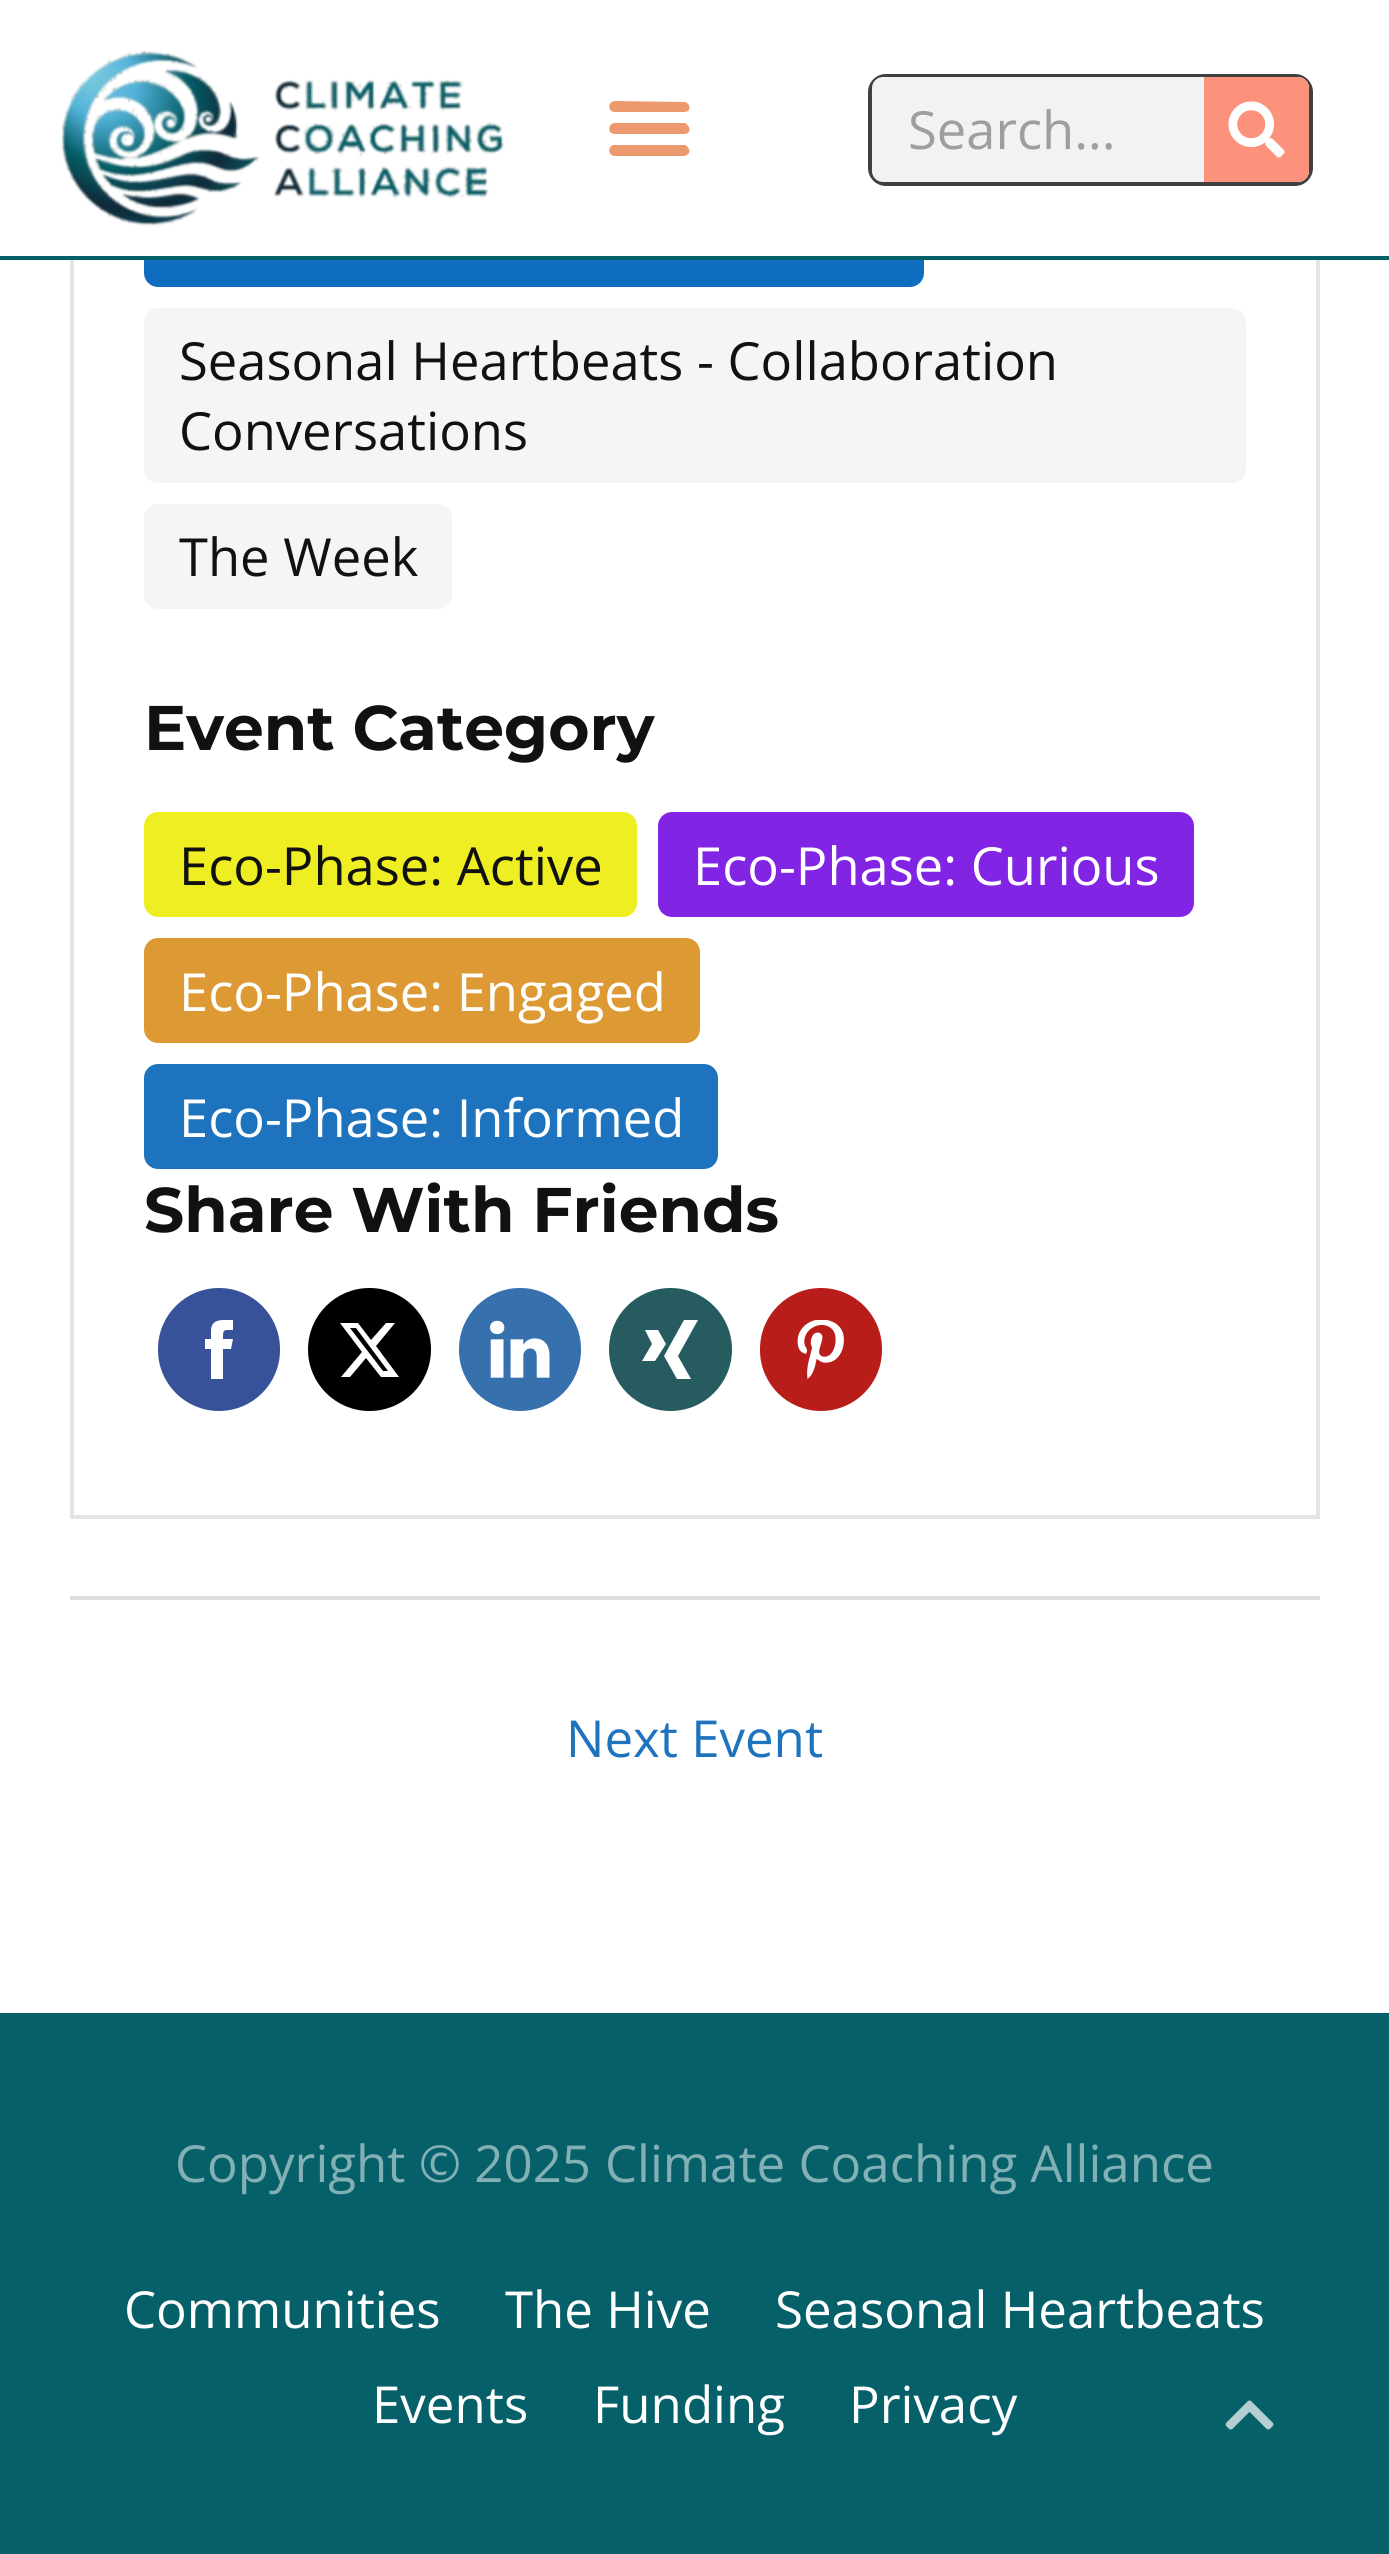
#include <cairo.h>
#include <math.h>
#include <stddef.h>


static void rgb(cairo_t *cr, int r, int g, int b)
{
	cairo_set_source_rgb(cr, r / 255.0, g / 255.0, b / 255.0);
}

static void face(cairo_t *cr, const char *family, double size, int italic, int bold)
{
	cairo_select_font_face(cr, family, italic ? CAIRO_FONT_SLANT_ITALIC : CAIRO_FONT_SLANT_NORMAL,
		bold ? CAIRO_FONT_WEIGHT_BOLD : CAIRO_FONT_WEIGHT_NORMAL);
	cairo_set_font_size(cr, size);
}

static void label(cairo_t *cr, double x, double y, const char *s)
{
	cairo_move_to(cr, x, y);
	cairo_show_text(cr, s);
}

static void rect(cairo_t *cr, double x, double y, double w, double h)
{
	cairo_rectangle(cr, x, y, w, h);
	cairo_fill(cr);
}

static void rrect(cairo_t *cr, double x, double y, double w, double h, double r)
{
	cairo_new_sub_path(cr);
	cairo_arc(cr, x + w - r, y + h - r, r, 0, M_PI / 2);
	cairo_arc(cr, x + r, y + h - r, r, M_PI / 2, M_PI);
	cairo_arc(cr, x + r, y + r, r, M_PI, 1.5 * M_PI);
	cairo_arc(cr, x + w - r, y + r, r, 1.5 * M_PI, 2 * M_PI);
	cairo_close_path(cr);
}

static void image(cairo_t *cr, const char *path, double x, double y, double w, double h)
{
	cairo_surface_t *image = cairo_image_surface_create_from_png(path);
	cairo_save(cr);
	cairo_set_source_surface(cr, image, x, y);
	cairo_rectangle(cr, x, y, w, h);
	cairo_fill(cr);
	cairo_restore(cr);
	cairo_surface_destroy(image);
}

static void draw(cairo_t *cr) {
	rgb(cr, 255, 255, 255);
	cairo_paint(cr);
	cairo_rectangle(cr, 72, -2, 1246, 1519);
	rgb(cr, 228, 228, 228);
	cairo_set_line_width(cr, 4);
	cairo_stroke(cr);
	rgb(cr, 15, 109, 191);
	rrect(cr, 144, 182, 780, 105, 14);
	cairo_fill(cr);
	rgb(cr, 255, 255, 255);
	rect(cr, 70, 0, 1250, 256);
	rgb(cr, 6, 96, 105);
	rect(cr, 0, 256, 1389, 4);
	image(cr, "image0.png", 61, 51, 444, 175);
	rgb(cr, 236, 153, 109);
	cairo_new_path(cr);
	cairo_move_to(cr, 615, 112);
	cairo_line_to(cr, 685, 112);
	cairo_line_to(cr, 688, 111);
	cairo_curve_to(cr, 691, 108, 689, 103, 685, 102);
	cairo_line_to(cr, 614, 101);
	cairo_curve_to(cr, 607, 103, 608, 112, 615, 112);
	cairo_close_path(cr);
	cairo_move_to(cr, 615, 134);
	cairo_line_to(cr, 685, 134);
	cairo_line_to(cr, 688, 133);
	cairo_curve_to(cr, 691, 130, 689, 125, 685, 123);
	cairo_line_to(cr, 614, 123);
	cairo_curve_to(cr, 607, 125, 608, 134, 615, 134);
	cairo_close_path(cr);
	cairo_move_to(cr, 615, 156);
	cairo_line_to(cr, 685, 156);
	cairo_line_to(cr, 688, 154);
	cairo_curve_to(cr, 691, 152, 689, 147, 685, 145);
	cairo_line_to(cr, 614, 145);
	cairo_curve_to(cr, 607, 146, 608, 156, 615, 156);
	cairo_close_path(cr);
	cairo_fill(cr);
	rrect(cr, 870, 76, 441, 108, 16);
	rgb(cr, 64, 64, 64);
	cairo_stroke(cr);
	rgb(cr, 241, 242, 243);
	rrect(cr, 872, 77, 437, 105, 11);
	cairo_fill(cr);
	face(cr, "Open Sans", 52.5, 0, 0);
	rgb(cr, 158, 158, 158);
	label(cr, 908, 149, "Search...");
	rgb(cr, 252, 146, 124);
	cairo_new_path(cr);
	cairo_move_to(cr, 1204, 77);
	cairo_line_to(cr, 1298, 77);
	cairo_curve_to(cr, 1304, 77, 1309, 82, 1309, 88);
	cairo_line_to(cr, 1309, 171);
	cairo_curve_to(cr, 1309, 177, 1304, 182, 1298, 182);
	cairo_line_to(cr, 1204, 182);
	cairo_close_path(cr);
	cairo_fill(cr);
	image(cr, "image1.png", 1228, 101, 57, 57);
	rgb(cr, 245, 245, 245);
	rrect(cr, 144, 308, 1102, 175, 14);
	cairo_fill(cr);
	rgb(cr, 17, 17, 17);
	label(cr, 179, 380, "Seasonal Heartbeats - Collaboration");
	label(cr, 179, 450, "Conversations");
	rgb(cr, 245, 245, 245);
	rrect(cr, 144, 504, 308, 105, 14);
	cairo_fill(cr);
	rgb(cr, 17, 17, 17);
	label(cr, 179, 576, "The Week");
	face(cr, "Montserrat", 63, 0, 1);
	label(cr, 144, 750, "Event Category");
	rgb(cr, 238, 238, 34);
	rrect(cr, 144, 812, 493, 105, 14);
	cairo_fill(cr);
	face(cr, "Open Sans", 52.5, 0, 0);
	rgb(cr, 17, 17, 17);
	label(cr, 179, 885, "Eco-Phase: Active");
	rgb(cr, 130, 36, 227);
	rrect(cr, 658, 812, 536, 105, 14);
	cairo_fill(cr);
	rgb(cr, 255, 255, 255);
	label(cr, 693, 885, "Eco-Phase: Curious");
	rgb(cr, 221, 153, 51);
	rrect(cr, 144, 938, 556, 105, 14);
	cairo_fill(cr);
	rgb(cr, 255, 255, 255);
	label(cr, 179, 1011, "Eco-Phase: Engaged");
	rgb(cr, 30, 115, 190);
	rrect(cr, 144, 1064, 574, 105, 14);
	cairo_fill(cr);
	rgb(cr, 255, 255, 255);
	label(cr, 179, 1137, "Eco-Phase: Informed");
	face(cr, "Montserrat", 63, 0, 1);
	rgb(cr, 17, 17, 17);
	label(cr, 144, 1232, "Share With Friends");
	rgb(cr, 56, 82, 154);
	rrect(cr, 158, 1288, 122, 123, 61);
	cairo_fill(cr);
	cairo_save(cr);
	cairo_rectangle(cr, 189, 1320, 60, 59);
	cairo_clip(cr);
	rgb(cr, 255, 255, 255);
	cairo_new_path(cr);
	cairo_move_to(cr, 211, 1331);
	cairo_line_to(cr, 211, 1339);
	cairo_line_to(cr, 205, 1339);
	cairo_line_to(cr, 205, 1349);
	cairo_line_to(cr, 211, 1349);
	cairo_line_to(cr, 211, 1379);
	cairo_line_to(cr, 223, 1379);
	cairo_line_to(cr, 223, 1349);
	cairo_line_to(cr, 231, 1349);
	cairo_line_to(cr, 233, 1339);
	cairo_line_to(cr, 223, 1339);
	cairo_curve_to(cr, 223, 1329, 223, 1330, 233, 1330);
	cairo_line_to(cr, 233, 1320);
	cairo_curve_to(cr, 223, 1320, 211, 1318, 211, 1331);
	cairo_close_path(cr);
	cairo_fill(cr);
	cairo_restore(cr);
	rgb(cr, 0, 0, 0);
	cairo_arc(cr, 369.5, 1349.5, 61.5, 0, 2 * M_PI);
	cairo_fill(cr);
	rgb(cr, 255, 255, 255);
	cairo_new_path(cr);
	cairo_move_to(cr, 386, 1323);
	cairo_line_to(cr, 395, 1323);
	cairo_line_to(cr, 376, 1346);
	cairo_line_to(cr, 399, 1377);
	cairo_line_to(cr, 381, 1377);
	cairo_line_to(cr, 366, 1358);
	cairo_line_to(cr, 350, 1377);
	cairo_line_to(cr, 341, 1377);
	cairo_line_to(cr, 362, 1352);
	cairo_line_to(cr, 340, 1323);
	cairo_line_to(cr, 358, 1323);
	cairo_line_to(cr, 371, 1340);
	cairo_close_path(cr);
	cairo_move_to(cr, 383, 1371);
	cairo_line_to(cr, 388, 1371);
	cairo_line_to(cr, 356, 1328);
	cairo_line_to(cr, 350, 1328);
	cairo_close_path(cr);
	cairo_fill(cr);
	rgb(cr, 54, 113, 174);
	rrect(cr, 459, 1288, 122, 123, 61);
	cairo_fill(cr);
	image(cr, "image2.png", 490, 1320, 60, 58);
	rgb(cr, 38, 92, 96);
	cairo_arc(cr, 670.5, 1349.5, 61.5, 0, 2 * M_PI);
	cairo_fill(cr);
	rgb(cr, 255, 255, 255);
	cairo_new_path(cr);
	cairo_move_to(cr, 677, 1379);
	cairo_line_to(cr, 664, 1356);
	cairo_line_to(cr, 684, 1320);
	cairo_line_to(cr, 698, 1320);
	cairo_line_to(cr, 678, 1356);
	cairo_line_to(cr, 691, 1379);
	cairo_close_path(cr);
	cairo_move_to(cr, 655, 1361);
	cairo_line_to(cr, 666, 1344);
	cairo_line_to(cr, 658, 1330);
	cairo_line_to(cr, 645, 1330);
	cairo_line_to(cr, 652, 1344);
	cairo_line_to(cr, 642, 1361);
	cairo_close_path(cr);
	cairo_fill(cr);
	rgb(cr, 184, 29, 26);
	rrect(cr, 760, 1288, 122, 123, 61);
	cairo_fill(cr);
	image(cr, "image3.png", 797, 1320, 47, 59);
	rgb(cr, 221, 221, 221);
	rect(cr, 70, 1596, 1250, 4);
	face(cr, "Open Sans", 51, 0, 0);
	rgb(cr, 30, 115, 190);
	label(cr, 566, 1757, "Next Event");
	rgb(cr, 6, 96, 105);
	rect(cr, 0, 2013, 1389, 541);
	rgb(cr, 131, 176, 180);
	label(cr, 175, 2182, "Copyright © 2025");
	label(cr, 605, 2182, "Climate Coaching Alliance");
	rgb(cr, 255, 255, 255);
	label(cr, 124, 2328, "Communities");
	label(cr, 505, 2328, "The Hive");
	label(cr, 775, 2328, "Seasonal Heartbeats");
	label(cr, 372, 2423, "Events");
	label(cr, 593, 2423, "Funding");
	label(cr, 849, 2423, "Privacy");
	cairo_set_source_rgba(cr, 0.024, 0.376, 0.412, 0.7);
	rrect(cr, 1162, 2328, 175, 175, 18);
	cairo_fill(cr);
	image(cr, "image4.png", 1225, 2400, 49, 30);
}

int main(void) {
	cairo_surface_t *surface = cairo_image_surface_create(CAIRO_FORMAT_RGB24, 1389, 2554);
	cairo_t *cr = cairo_create(surface);
	cairo_font_options_t *options = cairo_font_options_create();
	cairo_font_options_set_hint_metrics(options, CAIRO_HINT_METRICS_OFF);
	cairo_font_options_set_hint_style(options, CAIRO_HINT_STYLE_NONE);
	cairo_set_font_options(cr, options);
	cairo_set_miter_limit(cr, 4);
	draw(cr);
	cairo_surface_write_to_png(surface, "render.png");
	cairo_font_options_destroy(options);
	cairo_destroy(cr);
	cairo_surface_destroy(surface);
	return 0;
}
